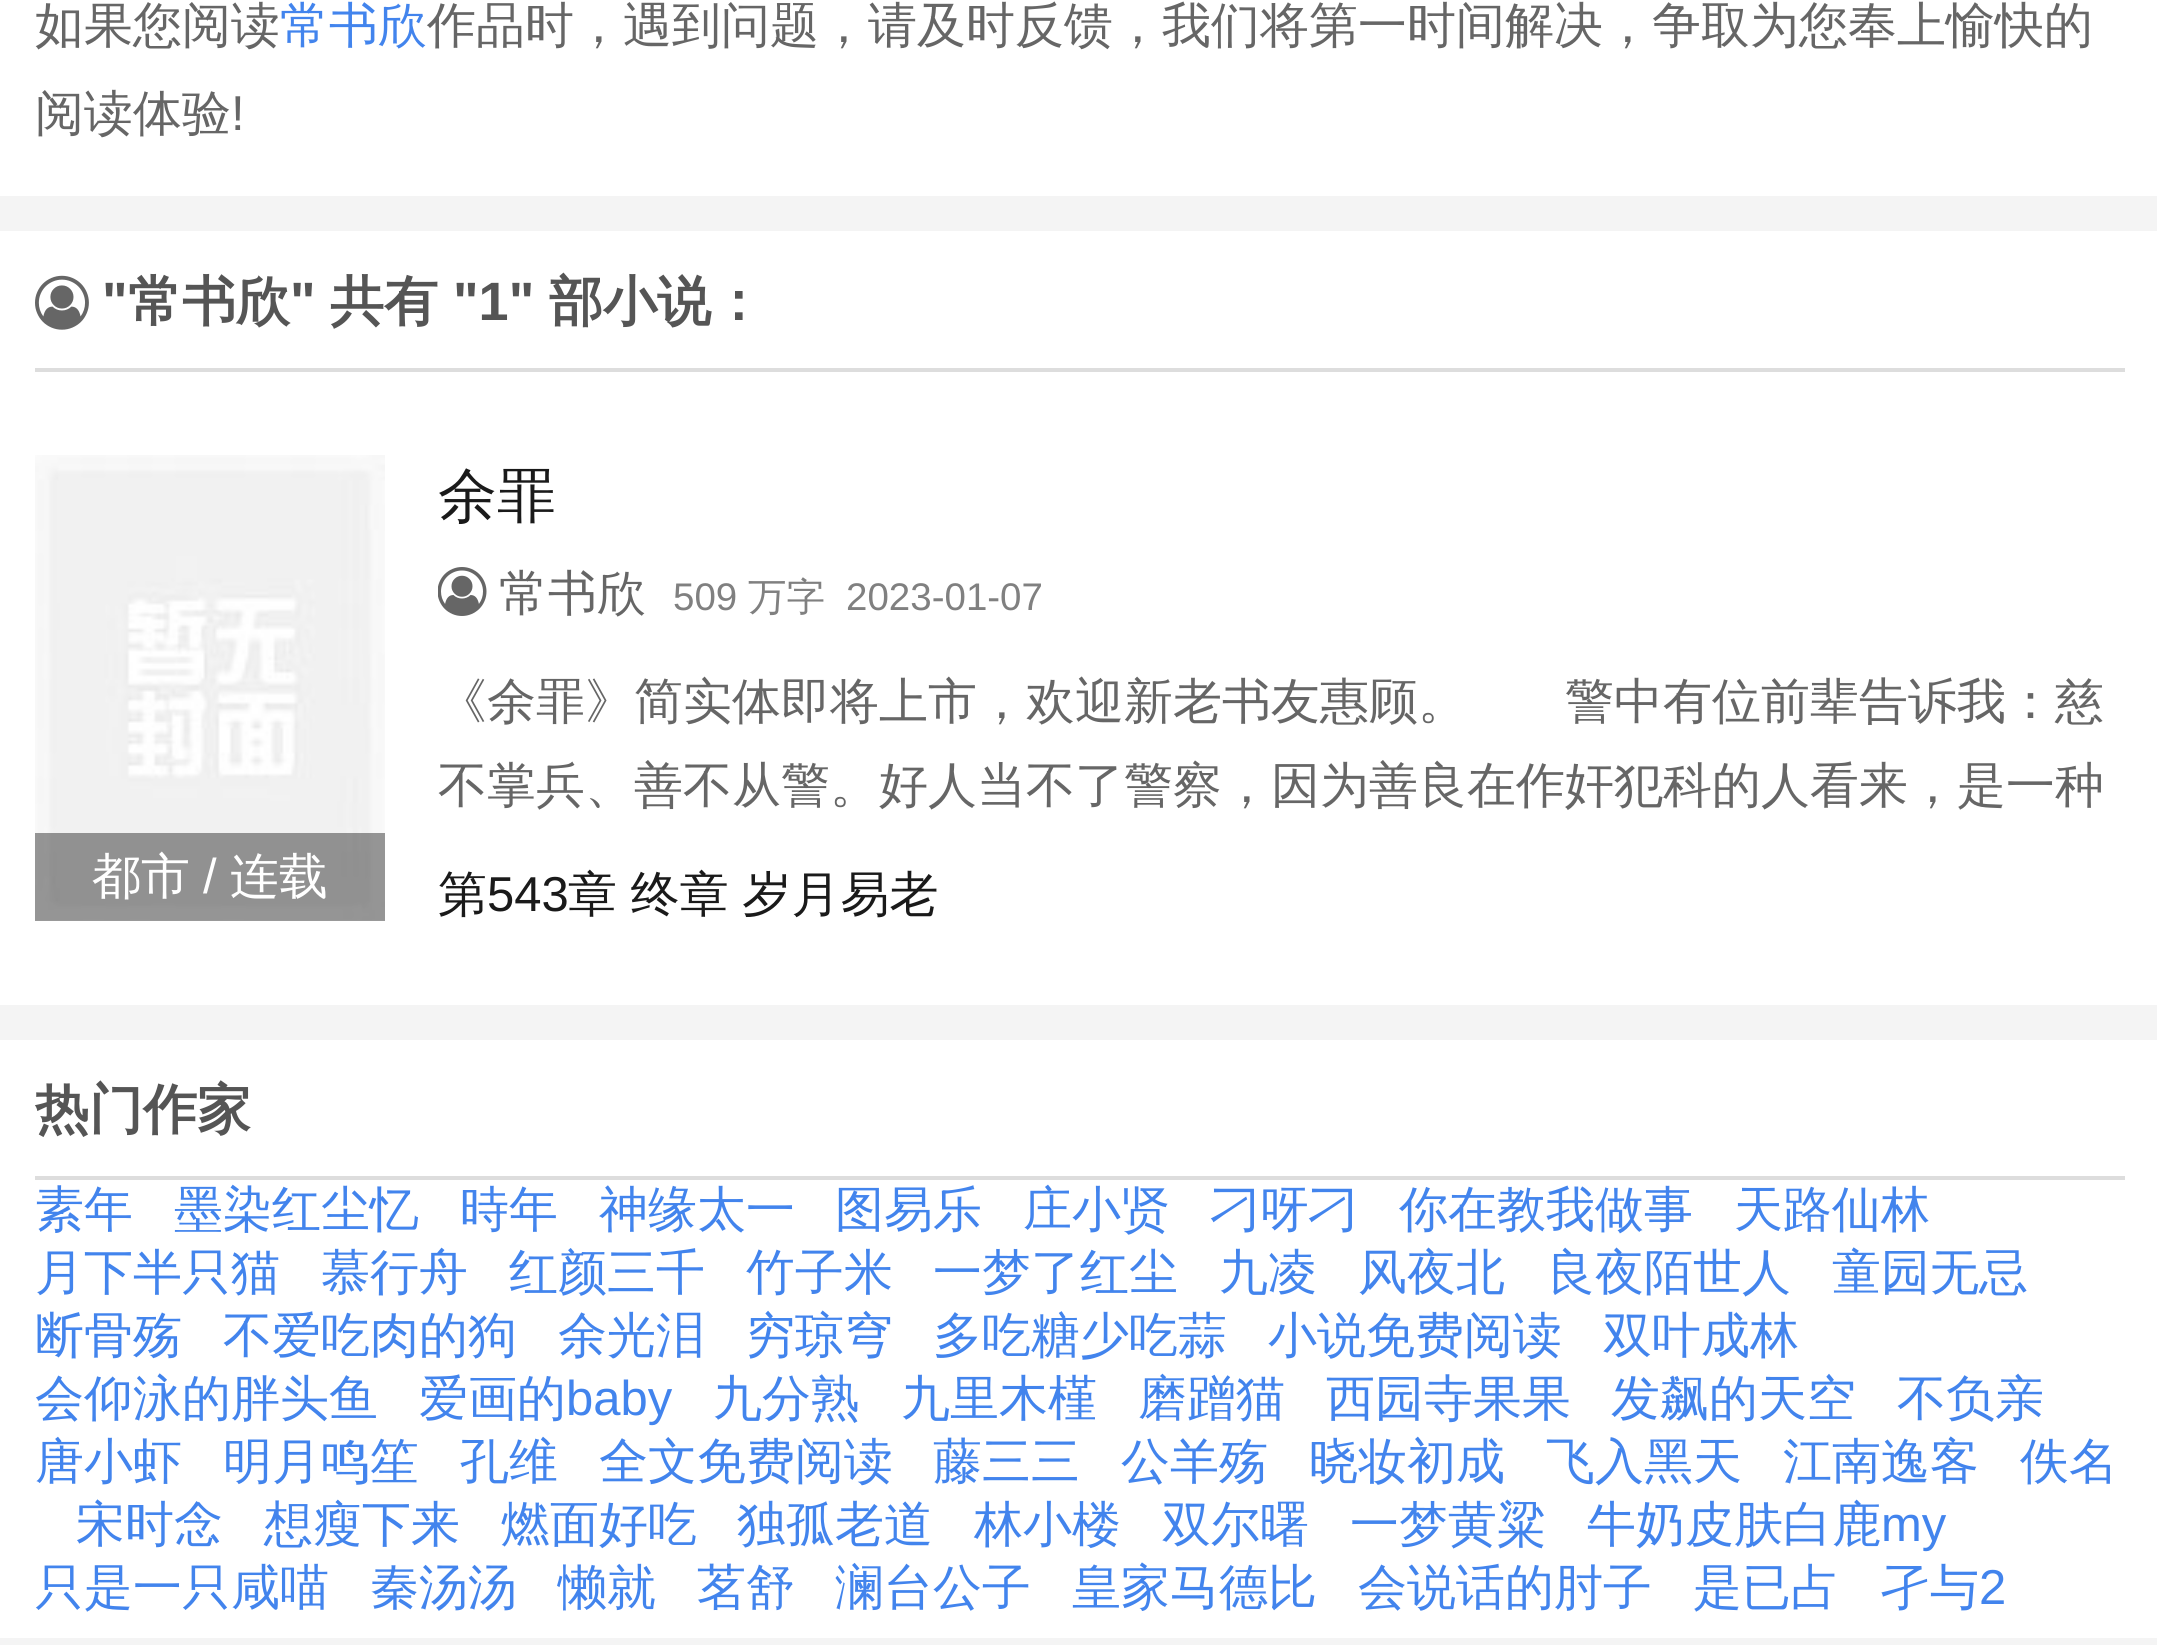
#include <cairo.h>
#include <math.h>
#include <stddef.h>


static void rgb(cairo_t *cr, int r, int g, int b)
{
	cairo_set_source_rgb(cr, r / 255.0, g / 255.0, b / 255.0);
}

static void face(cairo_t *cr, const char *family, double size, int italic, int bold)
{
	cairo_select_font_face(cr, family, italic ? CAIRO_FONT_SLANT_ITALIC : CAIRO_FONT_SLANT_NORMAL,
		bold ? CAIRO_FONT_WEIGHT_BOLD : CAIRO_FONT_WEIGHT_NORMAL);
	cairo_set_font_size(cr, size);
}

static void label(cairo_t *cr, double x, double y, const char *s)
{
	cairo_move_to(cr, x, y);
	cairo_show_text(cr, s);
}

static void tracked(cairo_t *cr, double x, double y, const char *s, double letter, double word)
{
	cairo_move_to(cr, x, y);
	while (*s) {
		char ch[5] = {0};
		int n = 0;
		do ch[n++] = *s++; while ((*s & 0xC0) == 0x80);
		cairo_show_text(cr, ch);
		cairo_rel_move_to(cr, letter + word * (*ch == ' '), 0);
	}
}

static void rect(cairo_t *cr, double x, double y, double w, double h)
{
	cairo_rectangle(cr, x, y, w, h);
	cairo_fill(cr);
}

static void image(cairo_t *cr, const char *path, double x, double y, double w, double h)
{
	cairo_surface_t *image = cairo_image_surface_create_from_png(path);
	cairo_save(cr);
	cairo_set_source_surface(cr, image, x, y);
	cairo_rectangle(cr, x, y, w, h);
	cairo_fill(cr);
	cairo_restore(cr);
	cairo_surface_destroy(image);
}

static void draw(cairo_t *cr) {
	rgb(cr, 244, 244, 244);
	cairo_paint(cr);
	rgb(cr, 255, 255, 255);
	rect(cr, 0, 0, 2157, 196);
	face(cr, "WenQuanYi Zen Hei Medium", 49, 0, 0);
	rgb(cr, 102, 102, 102);
	label(cr, 35, 42, "如果您阅读");
	rgb(cr, 66, 132, 237);
	label(cr, 280, 42, "常书欣");
	rgb(cr, 102, 102, 102);
	label(cr, 427, 42, "作品时，遇到问题，请及时反馈，我们将第一时间解决，争取为您奉上愉快的");
	label(cr, 35, 130, "阅读体验");
	face(cr, "Liberation Sans", 49, 0, 0);
	label(cr, 231, 130, "!");
	rgb(cr, 255, 255, 255);
	rect(cr, 0, 231, 2157, 774);
	rgb(cr, 221, 221, 221);
	rect(cr, 35, 368, 2090, 4);
	image(cr, "image0.png", 35, 275, 54, 55);
	face(cr, "Liberation Sans", 54, 0, 1);
	rgb(cr, 85, 85, 85);
	label(cr, 102, 320, "\"");
	face(cr, "WenQuanYi Zen Hei", 54, 0, 1);
	label(cr, 128, 320, "常书欣");
	face(cr, "Liberation Sans", 54, 0, 1);
	label(cr, 290, 320, "\"");
	face(cr, "WenQuanYi Zen Hei", 54, 0, 1);
	label(cr, 330, 320, "共有");
	face(cr, "Liberation Sans", 54, 0, 1);
	label(cr, 453, 320, "\"1\"");
	face(cr, "WenQuanYi Zen Hei", 54, 0, 1);
	label(cr, 549, 320, "部小说：");
	image(cr, "image1.png", 35, 455, 350, 465);
	cairo_set_source_rgba(cr, 0, 0, 0, 0.4);
	rect(cr, 35, 833, 350, 88);
	face(cr, "WenQuanYi Zen Hei Medium", 49, 0, 0);
	rgb(cr, 255, 255, 255);
	label(cr, 92, 893, "都市");
	face(cr, "Liberation Sans", 49, 0, 0);
	label(cr, 203, 893, "/");
	face(cr, "WenQuanYi Zen Hei Medium", 49, 0, 0);
	label(cr, 230, 893, "连载");
	face(cr, "WenQuanYi Zen Hei Medium", 59, 0, 0);
	rgb(cr, 26, 26, 26);
	label(cr, 438, 516, "余罪");
	image(cr, "image2.png", 438, 567, 49, 49);
	face(cr, "WenQuanYi Zen Hei Medium", 49, 0, 0);
	rgb(cr, 102, 102, 102);
	label(cr, 499, 610, "常书欣");
	face(cr, "Liberation Sans", 38.5, 0, 0);
	rgb(cr, 128, 128, 128);
	label(cr, 673, 610, "509");
	face(cr, "WenQuanYi Zen Hei Medium", 38.5, 0, 0);
	label(cr, 748, 610, "万字");
	face(cr, "Liberation Sans", 38.5, 0, 0);
	label(cr, 846, 610, "2023-01-07");
	face(cr, "WenQuanYi Zen Hei Medium", 49, 0, 0);
	rgb(cr, 102, 102, 102);
	label(cr, 438, 718, "《余罪》简实体即将上市，欢迎新老书友惠顾。　　警中有位前辈告诉我：慈");
	label(cr, 438, 802, "不掌兵、善不从警。好人当不了警察，因为善良在作奸犯科的人看来，是一种");
	rgb(cr, 26, 26, 26);
	label(cr, 438, 911, "第");
	face(cr, "Liberation Sans", 49, 0, 0);
	label(cr, 487, 911, "543");
	face(cr, "WenQuanYi Zen Hei Medium", 49, 0, 0);
	tracked(cr, 568, 911, "章 终章 岁月易老", 0, -1);
	rgb(cr, 255, 255, 255);
	rect(cr, 0, 1040, 2157, 598);
	rgb(cr, 221, 221, 221);
	rect(cr, 35, 1176, 2090, 4);
	face(cr, "WenQuanYi Zen Hei", 54, 0, 1);
	rgb(cr, 85, 85, 85);
	label(cr, 35, 1128, "热门作家");
	face(cr, "WenQuanYi Zen Hei Medium", 49, 0, 0);
	rgb(cr, 66, 132, 237);
	label(cr, 35, 1226, "素年");
	label(cr, 174, 1226, "墨染红尘忆");
	label(cr, 460, 1226, "時年");
	label(cr, 599, 1226, "神缘太一");
	label(cr, 835, 1226, "图易乐");
	label(cr, 1023, 1226, "庄小贤");
	label(cr, 1211, 1226, "刁呀刁");
	label(cr, 1399, 1226, "你在教我做事");
	label(cr, 1734, 1226, "天路仙林");
	label(cr, 35, 1289, "月下半只猫");
	label(cr, 321, 1289, "慕行舟");
	label(cr, 509, 1289, "红颜三千");
	label(cr, 746, 1289, "竹子米");
	label(cr, 933, 1289, "一梦了红尘");
	label(cr, 1219, 1289, "九凌");
	label(cr, 1358, 1289, "风夜北");
	label(cr, 1546, 1289, "良夜陌世人");
	label(cr, 1832, 1289, "童园无忌");
	label(cr, 35, 1352, "断骨殇");
	label(cr, 223, 1352, "不爱吃肉的狗");
	label(cr, 558, 1352, "余光泪");
	label(cr, 746, 1352, "穷琼穹");
	label(cr, 933, 1352, "多吃糖少吃蒜");
	label(cr, 1268, 1352, "小说免费阅读");
	label(cr, 1603, 1352, "双叶成林");
	label(cr, 35, 1415, "会仰泳的胖头鱼");
	label(cr, 419, 1415, "爱画的");
	face(cr, "Liberation Sans", 49, 0, 0);
	label(cr, 566, 1415, "baby");
	face(cr, "WenQuanYi Zen Hei Medium", 49, 0, 0);
	label(cr, 713, 1415, "九分熟");
	label(cr, 901, 1415, "九里木槿");
	label(cr, 1138, 1415, "磨蹭猫");
	label(cr, 1326, 1415, "西园寺果果");
	label(cr, 1611, 1415, "发飙的天空");
	label(cr, 1897, 1415, "不负亲");
	label(cr, 35, 1478, "唐小虾");
	label(cr, 223, 1478, "明月鸣笙");
	label(cr, 460, 1478, "孔维");
	label(cr, 599, 1478, "全文免费阅读");
	label(cr, 933, 1478, "藤三三");
	label(cr, 1121, 1478, "公羊殇");
	label(cr, 1309, 1478, "晓妆初成");
	label(cr, 1546, 1478, "飞入黑天");
	label(cr, 1783, 1478, "江南逸客");
	label(cr, 2020, 1478, "佚名");
	label(cr, 76, 1541, "宋时念");
	label(cr, 264, 1541, "想瘦下来");
	label(cr, 501, 1541, "燃面好吃");
	label(cr, 737, 1541, "独孤老道");
	label(cr, 974, 1541, "林小楼");
	label(cr, 1162, 1541, "双尔曙");
	label(cr, 1350, 1541, "一梦黄粱");
	label(cr, 1587, 1541, "牛奶皮肤白鹿");
	face(cr, "Liberation Sans", 49, 0, 0);
	label(cr, 1881, 1541, "my");
	face(cr, "WenQuanYi Zen Hei Medium", 49, 0, 0);
	label(cr, 35, 1604, "只是一只咸喵");
	label(cr, 370, 1604, "秦汤汤");
	label(cr, 558, 1604, "懒就");
	label(cr, 697, 1604, "茗舒");
	label(cr, 835, 1604, "澜台公子");
	label(cr, 1072, 1604, "皇家马德比");
	label(cr, 1358, 1604, "会说话的肘子");
	label(cr, 1693, 1604, "是已占");
	label(cr, 1881, 1604, "孑与");
	face(cr, "Liberation Sans", 49, 0, 0);
	label(cr, 1979, 1604, "2");
}

int main(void) {
	cairo_surface_t *surface = cairo_image_surface_create(CAIRO_FORMAT_RGB24, 2157, 1645);
	cairo_t *cr = cairo_create(surface);
	cairo_font_options_t *options = cairo_font_options_create();
	cairo_font_options_set_hint_metrics(options, CAIRO_HINT_METRICS_OFF);
	cairo_font_options_set_hint_style(options, CAIRO_HINT_STYLE_NONE);
	cairo_set_font_options(cr, options);
	cairo_set_miter_limit(cr, 4);
	draw(cr);
	cairo_surface_write_to_png(surface, "render.png");
	cairo_font_options_destroy(options);
	cairo_destroy(cr);
	cairo_surface_destroy(surface);
	return 0;
}
